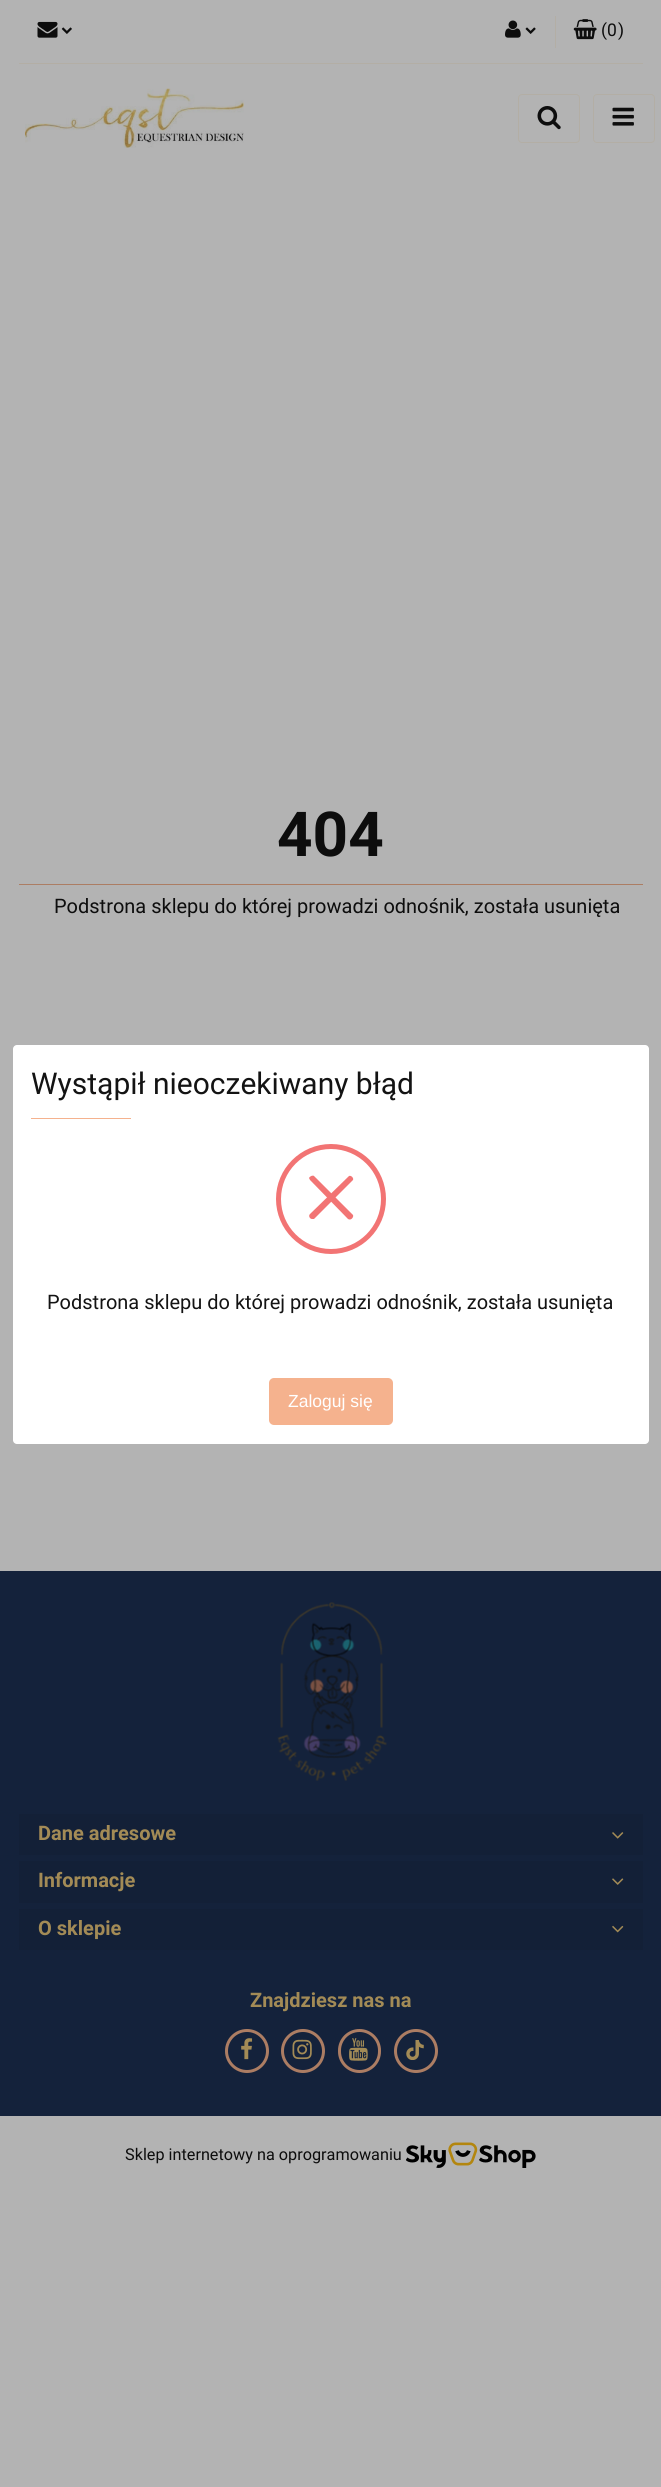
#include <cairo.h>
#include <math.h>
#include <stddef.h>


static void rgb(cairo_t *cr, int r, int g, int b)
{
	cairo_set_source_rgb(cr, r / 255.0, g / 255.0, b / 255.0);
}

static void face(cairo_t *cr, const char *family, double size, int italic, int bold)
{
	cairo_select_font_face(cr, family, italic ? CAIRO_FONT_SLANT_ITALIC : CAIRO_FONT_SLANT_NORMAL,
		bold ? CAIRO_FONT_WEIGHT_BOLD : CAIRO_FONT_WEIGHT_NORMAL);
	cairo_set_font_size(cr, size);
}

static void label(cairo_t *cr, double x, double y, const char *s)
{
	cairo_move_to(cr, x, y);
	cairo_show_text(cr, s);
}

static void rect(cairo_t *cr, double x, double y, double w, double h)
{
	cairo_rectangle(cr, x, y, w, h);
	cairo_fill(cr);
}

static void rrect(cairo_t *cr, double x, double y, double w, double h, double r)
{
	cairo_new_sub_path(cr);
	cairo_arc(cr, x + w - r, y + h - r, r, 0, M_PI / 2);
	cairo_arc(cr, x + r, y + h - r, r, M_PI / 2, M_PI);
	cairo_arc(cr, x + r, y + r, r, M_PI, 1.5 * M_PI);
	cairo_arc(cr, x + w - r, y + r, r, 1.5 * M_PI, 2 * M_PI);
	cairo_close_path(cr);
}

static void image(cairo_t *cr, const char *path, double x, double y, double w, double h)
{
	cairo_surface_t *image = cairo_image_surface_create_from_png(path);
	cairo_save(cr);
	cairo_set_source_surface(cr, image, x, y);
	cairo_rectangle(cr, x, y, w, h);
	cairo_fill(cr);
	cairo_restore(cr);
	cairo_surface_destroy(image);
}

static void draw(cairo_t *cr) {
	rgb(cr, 179, 179, 179);
	cairo_paint(cr);
	rgb(cr, 179, 174, 165);
	rect(cr, 19, 63, 624, 1);
	image(cr, "image0.png", 37, 21, 21, 17);
	image(cr, "image1.png", 61, 27, 11, 7);
	image(cr, "image2.png", 505, 20, 16, 18);
	image(cr, "image3.png", 525, 27, 11, 7);
	rect(cr, 555, 16, 1, 32);
	image(cr, "image4.png", 573, 19, 24, 21);
	face(cr, "Roboto", 17.5, 0, 0);
	rgb(cr, 13, 13, 13);
	label(cr, 601, 36, "(");
	label(cr, 607, 36, "0");
	label(cr, 618, 36, ")");
	image(cr, "image5.png", 25, 88, 219, 60);
	rrect(cr, 518.5, 94.5, 61, 48, 3.5);
	rgb(cr, 179, 174, 165);
	cairo_set_line_width(cr, 1);
	cairo_stroke(cr);
	image(cr, "image6.png", 537, 106, 24, 24);
	rrect(cr, 593.5, 94.5, 61, 48, 3.5);
	cairo_stroke(cr);
	image(cr, "image7.png", 612, 107, 22, 19);
	rgb(cr, 172, 125, 99);
	rect(cr, 19, 884, 624, 1);
	face(cr, "Roboto", 62, 0, 1);
	rgb(cr, 13, 13, 13);
	label(cr, 277, 856, "404");
	face(cr, "Roboto", 20, 0, 0);
	label(cr, 54, 913, "Podstrona sklepu do której prowadzi odnośnik, została usunięta");
	rgb(cr, 20, 34, 59);
	rect(cr, 0, 1571, 661, 545);
	image(cr, "image8.png", 277, 1602, 110, 179);
	rgb(cr, 19, 32, 55);
	rect(cr, 19, 1814, 624, 41);
	face(cr, "Roboto", 20, 0, 1);
	rgb(cr, 163, 139, 86);
	label(cr, 38, 1840, "Dane adresowe");
	image(cr, "image9.png", 612, 1832, 12, 7);
	rgb(cr, 19, 32, 55);
	rect(cr, 19, 1861, 624, 42);
	rgb(cr, 163, 139, 86);
	label(cr, 38, 1887, "Informacje");
	image(cr, "image10.png", 612, 1878, 12, 7);
	rgb(cr, 19, 32, 55);
	rect(cr, 19, 1909, 624, 41);
	rgb(cr, 163, 139, 86);
	label(cr, 38, 1935, "O sklepie");
	image(cr, "image11.png", 612, 1925, 12, 8);
	label(cr, 250, 2007, "Znajdziesz nas na");
	cairo_new_path(cr);
	cairo_arc(cr, 247, 2051, 20.5, 0, 2 * M_PI);
	rgb(cr, 172, 125, 99);
	cairo_set_line_width(cr, 3);
	cairo_stroke(cr);
	image(cr, "image12.png", 241, 2038, 12, 22);
	cairo_arc(cr, 303, 2051, 20.5, 0, 2 * M_PI);
	cairo_stroke(cr);
	image(cr, "image13.png", 292, 2039, 20, 21);
	rrect(cr, 339.5, 2030.5, 40, 41, 20);
	cairo_stroke(cr);
	image(cr, "image14.png", 349, 2038, 19, 23);
	cairo_arc(cr, 416, 2051, 20.5, 0, 2 * M_PI);
	cairo_stroke(cr);
	image(cr, "image15.png", 406, 2040, 18, 20);
	face(cr, "Roboto", 16.25, 0, 0);
	rgb(cr, 13, 13, 13);
	label(cr, 125, 2160, "Sklep internetowy na oprogramowaniu");
	image(cr, "image16.png", 406, 2142, 130, 26);
	rgb(cr, 255, 255, 255);
	rrect(cr, 13, 1045, 636, 399, 4);
	cairo_fill(cr);
	face(cr, "Roboto", 30, 0, 0);
	rgb(cr, 19, 19, 19);
	label(cr, 31, 1094, "Wystąpił nieoczekiwany błąd");
	rgb(cr, 245, 178, 142);
	rect(cr, 31, 1118, 100, 1);
	cairo_new_path(cr);
	cairo_arc(cr, 331, 1199, 52.5, 0, 2 * M_PI);
	rgb(cr, 242, 116, 116);
	cairo_set_line_width(cr, 5);
	cairo_stroke(cr);
	cairo_new_path(cr);
	cairo_move_to(cr, 314, 1176);
	cairo_line_to(cr, 353, 1215);
	cairo_curve_to(cr, 354, 1217, 351, 1221, 348, 1219);
	cairo_line_to(cr, 310, 1180);
	cairo_line_to(cr, 309, 1178);
	cairo_curve_to(cr, 310, 1176, 313, 1175, 314, 1176);
	cairo_close_path(cr);
	cairo_fill(cr);
	cairo_new_path(cr);
	cairo_move_to(cr, 310, 1214);
	cairo_line_to(cr, 349, 1176);
	cairo_curve_to(cr, 351, 1175, 354, 1178, 353, 1180);
	cairo_line_to(cr, 314, 1219);
	cairo_line_to(cr, 312, 1219);
	cairo_curve_to(cr, 310, 1219, 308, 1216, 310, 1214);
	cairo_close_path(cr);
	cairo_fill(cr);
	face(cr, "Roboto", 20, 0, 0);
	rgb(cr, 19, 19, 19);
	label(cr, 47, 1309, "Podstrona sklepu do której prowadzi odnośnik, została usunięta");
	rgb(cr, 245, 178, 142);
	rrect(cr, 269, 1378, 124, 47, 5);
	cairo_fill(cr);
	face(cr, "Liberation Sans", 17.5, 0, 0);
	rgb(cr, 255, 255, 255);
	label(cr, 288, 1407, "Zaloguj się");
}

int main(void) {
	cairo_surface_t *surface = cairo_image_surface_create(CAIRO_FORMAT_RGB24, 661, 2487);
	cairo_t *cr = cairo_create(surface);
	cairo_font_options_t *options = cairo_font_options_create();
	cairo_font_options_set_hint_metrics(options, CAIRO_HINT_METRICS_OFF);
	cairo_font_options_set_hint_style(options, CAIRO_HINT_STYLE_NONE);
	cairo_set_font_options(cr, options);
	cairo_set_miter_limit(cr, 4);
	draw(cr);
	cairo_surface_write_to_png(surface, "render.png");
	cairo_font_options_destroy(options);
	cairo_destroy(cr);
	cairo_surface_destroy(surface);
	return 0;
}
